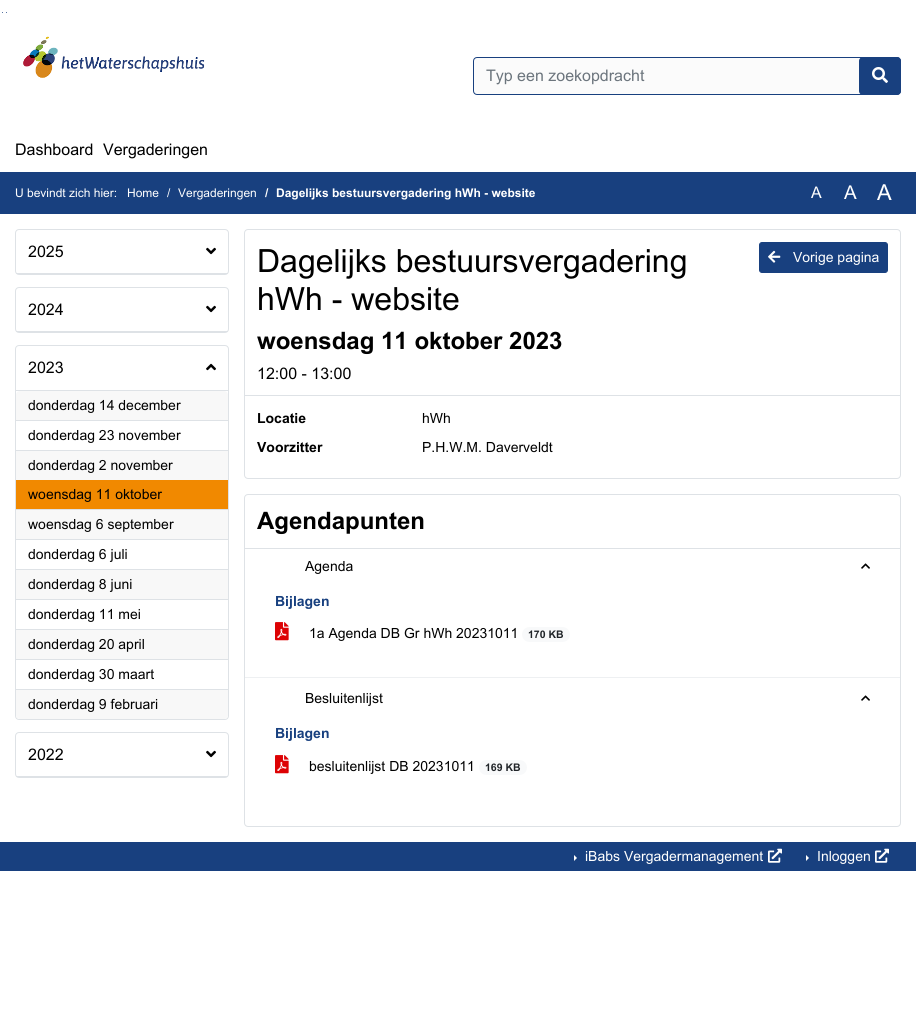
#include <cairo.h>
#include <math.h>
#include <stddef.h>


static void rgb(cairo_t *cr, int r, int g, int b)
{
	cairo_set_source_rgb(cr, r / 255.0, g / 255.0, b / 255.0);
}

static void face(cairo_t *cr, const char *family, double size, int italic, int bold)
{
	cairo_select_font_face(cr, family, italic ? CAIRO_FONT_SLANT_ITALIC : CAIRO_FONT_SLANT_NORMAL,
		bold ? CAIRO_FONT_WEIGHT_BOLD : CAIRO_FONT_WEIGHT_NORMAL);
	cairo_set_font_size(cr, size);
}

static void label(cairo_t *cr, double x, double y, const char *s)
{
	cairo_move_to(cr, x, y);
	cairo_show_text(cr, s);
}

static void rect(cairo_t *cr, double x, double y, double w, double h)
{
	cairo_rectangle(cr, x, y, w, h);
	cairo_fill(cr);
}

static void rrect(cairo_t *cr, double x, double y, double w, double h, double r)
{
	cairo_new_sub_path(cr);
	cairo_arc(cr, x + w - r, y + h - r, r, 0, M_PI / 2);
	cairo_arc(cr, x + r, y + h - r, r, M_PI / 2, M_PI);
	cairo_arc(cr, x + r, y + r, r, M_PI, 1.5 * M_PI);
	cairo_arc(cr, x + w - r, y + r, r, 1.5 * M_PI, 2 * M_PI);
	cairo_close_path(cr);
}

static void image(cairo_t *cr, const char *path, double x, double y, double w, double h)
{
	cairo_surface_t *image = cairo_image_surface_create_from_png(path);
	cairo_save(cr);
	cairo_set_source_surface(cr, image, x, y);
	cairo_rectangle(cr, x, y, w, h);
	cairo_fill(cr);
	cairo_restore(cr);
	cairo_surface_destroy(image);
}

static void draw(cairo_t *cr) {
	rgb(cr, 255, 255, 255);
	cairo_paint(cr);
	rgb(cr, 24, 64, 127);
	cairo_arc(cr, 2.5, 12.5, 0.5, 0, 2 * M_PI);
	cairo_fill(cr);
	cairo_arc(cr, 6.5, 12.5, 0.5, 0, 2 * M_PI);
	cairo_fill(cr);
	image(cr, "image0.png", 23, 36, 182, 42);
	rgb(cr, 251, 251, 251);
	rrect(cr, 473.5, 57.5, 427, 37, 3.5);
	cairo_fill_preserve(cr);
	rgb(cr, 24, 64, 127);
	cairo_set_line_width(cr, 1);
	cairo_stroke(cr);
	face(cr, "Arial", 16, 0, 0);
	rgb(cr, 108, 117, 125);
	label(cr, 486, 81, "Typ een zoekopdracht");
	rgb(cr, 24, 64, 127);
	rrect(cr, 859, 57, 42, 38, 4);
	cairo_fill(cr);
	image(cr, "image1.png", 872, 67, 16, 16);
	rgb(cr, 0, 0, 0);
	label(cr, 15, 155, "Dashboard");
	label(cr, 103, 155, "Vergaderingen");
	rgb(cr, 24, 64, 127);
	rect(cr, 0, 172, 916, 42);
	face(cr, "Arial", 12, 0, 0);
	rgb(cr, 255, 255, 255);
	label(cr, 15, 197, "U bevindt zich hier:");
	label(cr, 127, 197, "Home");
	label(cr, 167, 197, "/");
	label(cr, 178, 197, "Vergaderingen");
	face(cr, "Arial", 12, 0, 1);
	label(cr, 265, 197, "/");
	label(cr, 276, 197, "Dagelijks bestuursvergadering hWh - website");
	face(cr, "Arial", 16, 0, 0);
	label(cr, 811, 198, "A");
	face(cr, "Arial", 19, 0, 0);
	label(cr, 844, 199, "A");
	face(cr, "Arial", 22, 0, 0);
	label(cr, 877, 200, "A");
	rrect(cr, 15.5, 229.5, 213, 45, 3.5);
	rgb(cr, 222, 226, 230);
	cairo_stroke(cr);
	rect(cr, 16, 273, 212, 1);
	face(cr, "Arial", 16, 0, 0);
	rgb(cr, 0, 0, 0);
	label(cr, 28, 257, "2025");
	image(cr, "image2.png", 206, 247, 10, 8);
	rrect(cr, 15.5, 287.5, 213, 45, 3.5);
	rgb(cr, 222, 226, 230);
	cairo_stroke(cr);
	rect(cr, 16, 331, 212, 1);
	rgb(cr, 0, 0, 0);
	label(cr, 28, 315, "2024");
	image(cr, "image2.png", 206, 305, 10, 8);
	rrect(cr, 15.5, 345.5, 213, 374, 3.5);
	rgb(cr, 222, 226, 230);
	cairo_stroke(cr);
	rect(cr, 16, 390, 212, 1);
	rgb(cr, 0, 0, 0);
	label(cr, 28, 373, "2023");
	image(cr, "image3.png", 206, 363, 10, 8);
	rgb(cr, 248, 248, 248);
	rrect(cr, 16, 391, 212, 328, 4);
	cairo_fill(cr);
	rgb(cr, 222, 226, 230);
	rect(cr, 16, 420, 212, 1);
	face(cr, "Arial", 14, 0, 0);
	rgb(cr, 0, 0, 0);
	label(cr, 28, 410, "donderdag 14 december");
	rgb(cr, 255, 255, 255);
	rect(cr, 16, 421, 212, 29);
	rgb(cr, 222, 226, 230);
	rect(cr, 16, 450, 212, 1);
	rgb(cr, 0, 0, 0);
	label(cr, 28, 440, "donderdag 23 november");
	label(cr, 28, 470, "donderdag 2 november");
	rgb(cr, 241, 137, 0);
	rect(cr, 16, 480, 212, 29);
	rgb(cr, 222, 226, 230);
	rect(cr, 16, 509, 212, 1);
	rgb(cr, 0, 0, 0);
	label(cr, 28, 499, "woensdag 11 oktober");
	rgb(cr, 222, 226, 230);
	rect(cr, 16, 539, 212, 1);
	rgb(cr, 0, 0, 0);
	label(cr, 28, 529, "woensdag 6 september");
	rgb(cr, 255, 255, 255);
	rect(cr, 16, 540, 212, 29);
	rgb(cr, 222, 226, 230);
	rect(cr, 16, 569, 212, 1);
	rgb(cr, 0, 0, 0);
	label(cr, 28, 559, "donderdag 6 juli");
	rgb(cr, 222, 226, 230);
	rect(cr, 16, 599, 212, 1);
	rgb(cr, 0, 0, 0);
	label(cr, 28, 589, "donderdag 8 juni");
	rgb(cr, 255, 255, 255);
	rect(cr, 16, 600, 212, 29);
	rgb(cr, 222, 226, 230);
	rect(cr, 16, 629, 212, 1);
	rgb(cr, 0, 0, 0);
	label(cr, 28, 619, "donderdag 11 mei");
	rgb(cr, 222, 226, 230);
	rect(cr, 16, 659, 212, 1);
	rgb(cr, 0, 0, 0);
	label(cr, 28, 649, "donderdag 20 april");
	rgb(cr, 255, 255, 255);
	rect(cr, 16, 660, 212, 29);
	rgb(cr, 222, 226, 230);
	rect(cr, 16, 689, 212, 1);
	rgb(cr, 0, 0, 0);
	label(cr, 28, 679, "donderdag 30 maart");
	label(cr, 28, 709, "donderdag 9 februari");
	rrect(cr, 15.5, 732.5, 213, 45, 3.5);
	rgb(cr, 222, 226, 230);
	cairo_stroke(cr);
	rect(cr, 16, 776, 212, 1);
	face(cr, "Arial", 16, 0, 0);
	rgb(cr, 0, 0, 0);
	label(cr, 28, 760, "2022");
	image(cr, "image2.png", 206, 750, 10, 8);
	rrect(cr, 244.5, 229.5, 656, 249, 3.5);
	rgb(cr, 222, 226, 230);
	cairo_stroke(cr);
	face(cr, "Arial", 32, 0, 0);
	rgb(cr, 0, 0, 0);
	label(cr, 257, 272, "Dagelijks bestuursvergadering");
	label(cr, 257, 310, "hWh - website");
	rgb(cr, 24, 64, 127);
	rrect(cr, 759.5, 242.5, 128, 30, 2.5);
	cairo_fill_preserve(cr);
	cairo_stroke(cr);
	image(cr, "image4.png", 768, 250, 13, 13);
	face(cr, "Arial", 14, 0, 0);
	rgb(cr, 255, 255, 255);
	label(cr, 793, 262, "Vorige pagina");
	face(cr, "Arial", 24, 0, 1);
	rgb(cr, 0, 0, 0);
	label(cr, 257, 349, "woensdag 11 oktober 2023");
	face(cr, "Arial", 16, 0, 0);
	label(cr, 257, 379, "12:00 - 13:00");
	rgb(cr, 222, 226, 230);
	rect(cr, 245, 395, 655, 1);
	face(cr, "Arial", 14, 0, 1);
	rgb(cr, 0, 0, 0);
	label(cr, 257, 423, "Locatie");
	face(cr, "Arial", 14, 0, 0);
	label(cr, 422, 423, "hWh");
	face(cr, "Arial", 14, 0, 1);
	label(cr, 257, 452, "Voorzitter");
	face(cr, "Arial", 14, 0, 0);
	label(cr, 422, 452, "P.H.W.M. Daverveldt");
	rrect(cr, 244.5, 494.5, 656, 332, 3.5);
	rgb(cr, 222, 226, 230);
	cairo_stroke(cr);
	face(cr, "Arial", 24, 0, 1);
	rgb(cr, 0, 0, 0);
	label(cr, 257, 529, "Agendapunten");
	rgb(cr, 222, 226, 230);
	rect(cr, 245, 548, 655, 1);
	rgb(cr, 238, 240, 242);
	rect(cr, 245, 677, 655, 1);
	face(cr, "Arial", 14, 0, 0);
	rgb(cr, 0, 0, 0);
	label(cr, 305, 571, "Agenda");
	image(cr, "image5.png", 861, 563, 9, 6);
	face(cr, "Arial", 14, 0, 1);
	rgb(cr, 24, 64, 127);
	label(cr, 275, 606, "Bijlagen");
	image(cr, "image6.png", 275, 622, 14, 19);
	face(cr, "Arial", 14, 0, 0);
	rgb(cr, 0, 0, 0);
	label(cr, 309, 638, "1a Agenda DB Gr hWh 20231011");
	rgb(cr, 248, 249, 250);
	rrect(cr, 522, 627, 48, 15, 7.5);
	cairo_fill(cr);
	face(cr, "Arial", 10.5, 0, 1);
	rgb(cr, 33, 37, 41);
	label(cr, 528, 638, "170 KB");
	face(cr, "Arial", 14, 0, 0);
	rgb(cr, 0, 0, 0);
	label(cr, 305, 703, "Besluitenlijst");
	image(cr, "image5.png", 861, 695, 9, 6);
	face(cr, "Arial", 14, 0, 1);
	rgb(cr, 24, 64, 127);
	label(cr, 275, 738, "Bijlagen");
	image(cr, "image6.png", 275, 755, 14, 19);
	face(cr, "Arial", 14, 0, 0);
	rgb(cr, 0, 0, 0);
	label(cr, 309, 771, "besluitenlijst DB 20231011");
	rgb(cr, 248, 249, 250);
	rrect(cr, 479, 760, 48, 15, 7.5);
	cairo_fill(cr);
	face(cr, "Arial", 10.5, 0, 1);
	rgb(cr, 33, 37, 41);
	label(cr, 485, 771, "169 KB");
	rgb(cr, 24, 64, 127);
	rect(cr, 0, 842, 916, 29);
	rgb(cr, 255, 255, 255);
	cairo_new_path(cr);
	cairo_move_to(cr, 574, 861);
	cairo_line_to(cr, 574, 855);
	cairo_line_to(cr, 577, 858);
	cairo_close_path(cr);
	cairo_fill(cr);
	face(cr, "Arial", 14, 0, 0);
	label(cr, 585, 861, "iBabs Vergadermanagement");
	image(cr, "image7.png", 768, 848, 14, 15);
	cairo_new_path(cr);
	cairo_move_to(cr, 806, 861);
	cairo_line_to(cr, 806, 855);
	cairo_line_to(cr, 809, 858);
	cairo_close_path(cr);
	cairo_fill(cr);
	label(cr, 817, 861, "Inloggen");
	image(cr, "image7.png", 875, 848, 14, 15);
}

int main(void) {
	cairo_surface_t *surface = cairo_image_surface_create(CAIRO_FORMAT_RGB24, 916, 1029);
	cairo_t *cr = cairo_create(surface);
	cairo_font_options_t *options = cairo_font_options_create();
	cairo_font_options_set_hint_metrics(options, CAIRO_HINT_METRICS_OFF);
	cairo_font_options_set_hint_style(options, CAIRO_HINT_STYLE_NONE);
	cairo_set_font_options(cr, options);
	cairo_set_miter_limit(cr, 4);
	draw(cr);
	cairo_surface_write_to_png(surface, "render.png");
	cairo_font_options_destroy(options);
	cairo_destroy(cr);
	cairo_surface_destroy(surface);
	return 0;
}
